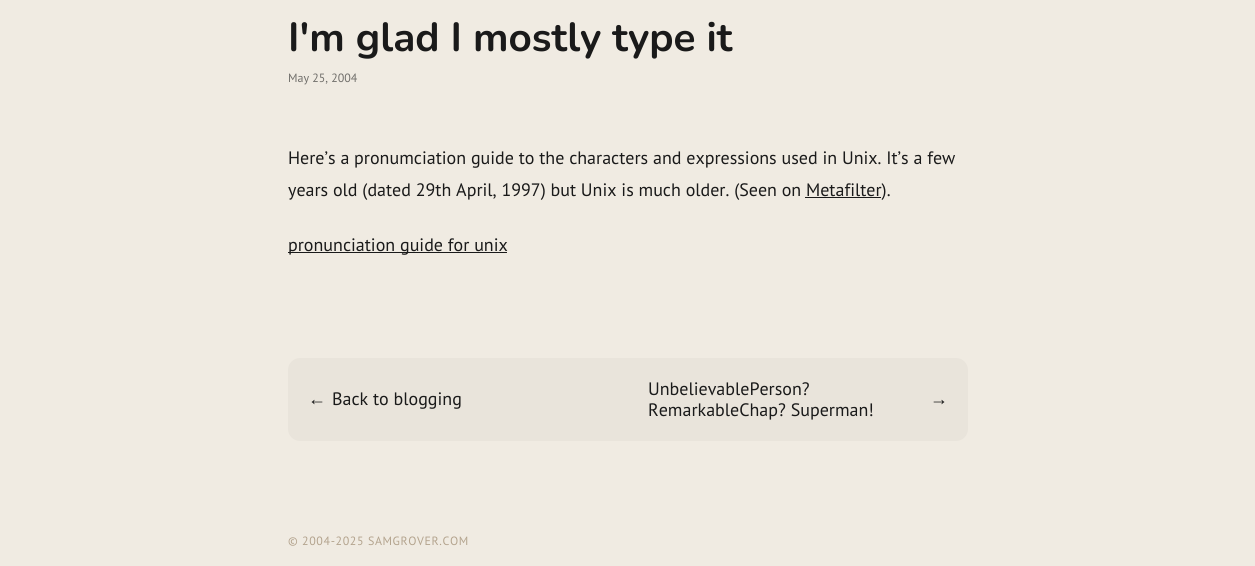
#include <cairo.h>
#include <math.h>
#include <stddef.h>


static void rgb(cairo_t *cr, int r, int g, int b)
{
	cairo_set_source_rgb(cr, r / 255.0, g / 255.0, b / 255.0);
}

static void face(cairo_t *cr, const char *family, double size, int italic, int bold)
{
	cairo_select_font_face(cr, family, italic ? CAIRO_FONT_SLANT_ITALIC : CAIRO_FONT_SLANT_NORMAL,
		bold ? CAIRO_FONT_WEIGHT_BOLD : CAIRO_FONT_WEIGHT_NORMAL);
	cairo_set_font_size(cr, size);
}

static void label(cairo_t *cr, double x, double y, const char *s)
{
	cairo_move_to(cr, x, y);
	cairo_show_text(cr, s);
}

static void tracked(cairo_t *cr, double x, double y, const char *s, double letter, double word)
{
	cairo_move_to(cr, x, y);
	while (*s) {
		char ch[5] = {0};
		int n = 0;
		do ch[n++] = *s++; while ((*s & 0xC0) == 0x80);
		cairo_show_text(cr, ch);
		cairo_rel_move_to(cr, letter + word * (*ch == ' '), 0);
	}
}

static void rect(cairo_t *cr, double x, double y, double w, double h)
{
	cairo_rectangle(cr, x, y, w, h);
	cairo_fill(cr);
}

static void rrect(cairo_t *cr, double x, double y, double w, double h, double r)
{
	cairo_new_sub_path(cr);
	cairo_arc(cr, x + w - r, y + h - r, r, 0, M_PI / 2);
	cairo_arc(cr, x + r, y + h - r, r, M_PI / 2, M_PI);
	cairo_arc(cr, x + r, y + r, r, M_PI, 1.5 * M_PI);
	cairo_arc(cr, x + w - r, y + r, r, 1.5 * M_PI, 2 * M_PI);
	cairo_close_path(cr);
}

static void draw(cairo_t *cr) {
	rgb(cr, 240, 235, 226);
	cairo_paint(cr);
	face(cr, "Nunito", 40.5, 0, 1);
	rgb(cr, 26, 26, 26);
	label(cr, 288, 51, "I'm glad I mostly type it");
	face(cr, "PT Sans", 12, 0, 0);
	rgb(cr, 112, 110, 106);
	label(cr, 288, 82, "May 25, 2004");
	face(cr, "PT Sans", 18, 0, 0);
	rgb(cr, 26, 26, 26);
	label(cr, 288, 164, "Here’s a pronumciation guide to the characters and expressions used in Unix. It’s a few");
	label(cr, 288, 196, "years old (dated 29th April, 1997) but Unix is much older. (Seen on Metafilter).");
	rect(cr, 805, 197, 76, 1);
	rect(cr, 288, 252, 219, 1);
	label(cr, 288, 251, "pronunciation guide for unix");
	rgb(cr, 233, 228, 219);
	rrect(cr, 288, 358, 680, 83, 12);
	cairo_fill(cr);
	face(cr, "Liberation Sans", 18, 0, 0);
	rgb(cr, 26, 26, 26);
	label(cr, 308, 405, "←");
	face(cr, "PT Sans", 18, 0, 0);
	label(cr, 332, 405, "Back to blogging");
	label(cr, 648, 395, "UnbelievablePerson?");
	label(cr, 648, 416, "RemarkableChap? Superman!");
	face(cr, "Liberation Sans", 18, 0, 0);
	label(cr, 930, 405, "→");
	face(cr, "PT Sans", 12, 0, 0);
	rgb(cr, 179, 163, 141);
	tracked(cr, 288, 545, "© 2004-2025 SAMGROVER.COM", 0.6, 0);
}

int main(void) {
	cairo_surface_t *surface = cairo_image_surface_create(CAIRO_FORMAT_RGB24, 1255, 566);
	cairo_t *cr = cairo_create(surface);
	cairo_font_options_t *options = cairo_font_options_create();
	cairo_font_options_set_hint_metrics(options, CAIRO_HINT_METRICS_OFF);
	cairo_font_options_set_hint_style(options, CAIRO_HINT_STYLE_NONE);
	cairo_set_font_options(cr, options);
	cairo_set_miter_limit(cr, 4);
	draw(cr);
	cairo_surface_write_to_png(surface, "render.png");
	cairo_font_options_destroy(options);
	cairo_destroy(cr);
	cairo_surface_destroy(surface);
	return 0;
}
